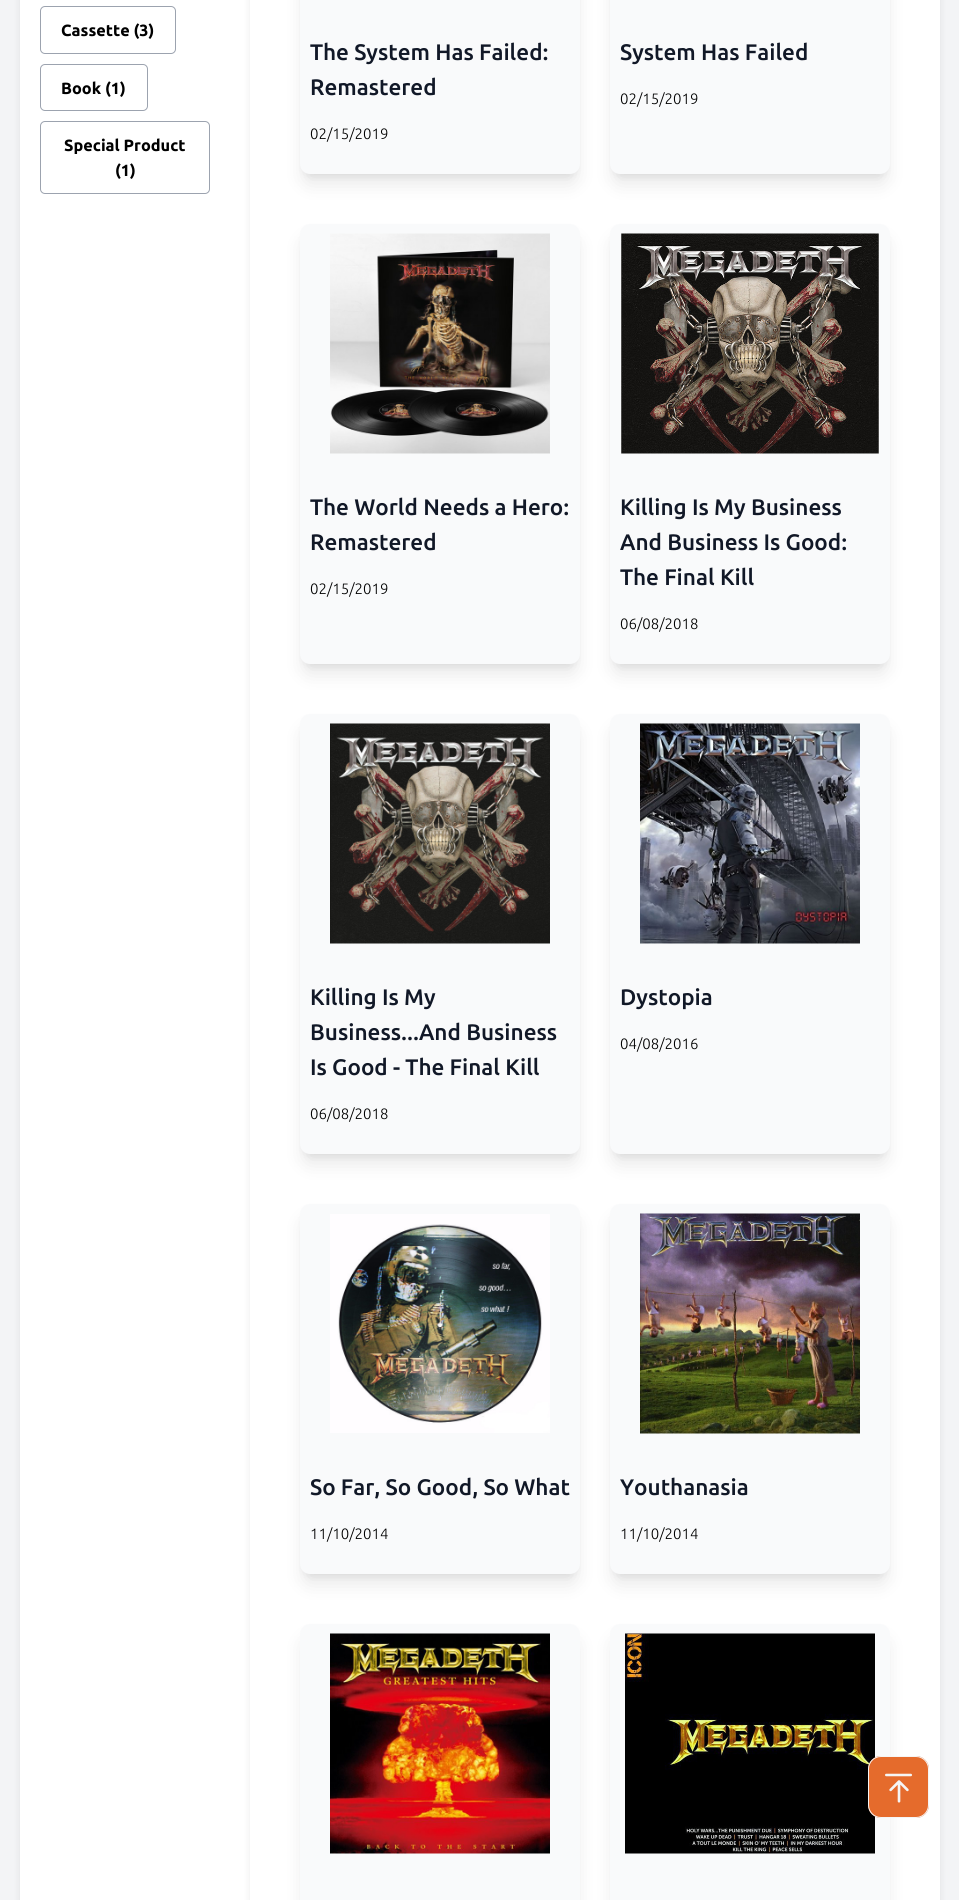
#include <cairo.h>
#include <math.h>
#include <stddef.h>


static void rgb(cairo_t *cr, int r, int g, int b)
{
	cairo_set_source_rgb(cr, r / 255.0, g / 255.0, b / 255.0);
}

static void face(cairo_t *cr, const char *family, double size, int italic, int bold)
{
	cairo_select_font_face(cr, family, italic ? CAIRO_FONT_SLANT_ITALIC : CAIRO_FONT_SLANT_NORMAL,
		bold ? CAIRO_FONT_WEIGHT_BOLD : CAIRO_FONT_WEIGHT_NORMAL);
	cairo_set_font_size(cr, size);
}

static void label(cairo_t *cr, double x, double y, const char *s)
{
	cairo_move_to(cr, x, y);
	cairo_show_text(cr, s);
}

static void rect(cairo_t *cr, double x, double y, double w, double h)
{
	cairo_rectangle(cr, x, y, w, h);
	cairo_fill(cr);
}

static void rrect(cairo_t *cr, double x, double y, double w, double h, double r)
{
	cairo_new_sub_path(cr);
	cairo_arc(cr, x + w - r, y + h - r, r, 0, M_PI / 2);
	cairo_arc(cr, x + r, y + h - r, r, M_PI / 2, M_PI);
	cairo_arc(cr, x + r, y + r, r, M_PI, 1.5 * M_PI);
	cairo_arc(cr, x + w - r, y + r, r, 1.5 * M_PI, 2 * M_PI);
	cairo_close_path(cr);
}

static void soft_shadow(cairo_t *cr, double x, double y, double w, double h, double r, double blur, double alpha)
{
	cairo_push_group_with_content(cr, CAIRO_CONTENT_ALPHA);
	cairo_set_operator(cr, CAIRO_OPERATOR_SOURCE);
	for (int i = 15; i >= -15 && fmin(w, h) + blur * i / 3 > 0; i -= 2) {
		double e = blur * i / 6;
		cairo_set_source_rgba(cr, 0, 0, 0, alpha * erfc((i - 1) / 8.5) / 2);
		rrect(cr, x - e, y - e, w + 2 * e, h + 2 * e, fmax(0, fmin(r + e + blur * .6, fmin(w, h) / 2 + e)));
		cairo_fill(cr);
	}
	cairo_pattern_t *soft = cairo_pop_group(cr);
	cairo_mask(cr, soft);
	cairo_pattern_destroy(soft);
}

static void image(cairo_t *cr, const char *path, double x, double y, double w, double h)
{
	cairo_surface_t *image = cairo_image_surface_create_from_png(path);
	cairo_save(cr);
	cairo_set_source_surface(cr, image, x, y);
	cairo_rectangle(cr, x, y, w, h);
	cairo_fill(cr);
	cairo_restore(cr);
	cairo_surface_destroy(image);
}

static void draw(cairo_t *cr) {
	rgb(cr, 243, 244, 246);
	cairo_paint(cr);
	rgb(cr, 0, 0, 0);
	soft_shadow(cr, 21, -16, 228, 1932, 4, 4, 0.1);
	rgb(cr, 255, 255, 255);
	rect(cr, 20, 0, 230, 1900);
	rrect(cr, 40.5, 6.5, 135, 47, 4.5);
	rgb(cr, 156, 163, 175);
	cairo_set_line_width(cr, 1);
	cairo_stroke(cr);
	face(cr, "Ubuntu", 16.25, 0, 1);
	rgb(cr, 0, 0, 0);
	label(cr, 61, 36, "Cassette (3)");
	rrect(cr, 40.5, 64.5, 107, 46, 4.5);
	rgb(cr, 156, 163, 175);
	cairo_stroke(cr);
	rgb(cr, 0, 0, 0);
	label(cr, 61, 94, "Book (1)");
	rrect(cr, 40.5, 121.5, 169, 72, 4.5);
	rgb(cr, 156, 163, 175);
	cairo_stroke(cr);
	rgb(cr, 0, 0, 0);
	label(cr, 64, 151, "Special Product");
	label(cr, 115, 176, "(1)");
	rgb(cr, 0, 0, 0);
	soft_shadow(cr, 251, -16, 688, 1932, 4, 4, 0.1);
	rgb(cr, 255, 255, 255);
	rect(cr, 250, 0, 690, 1900);
	rgb(cr, 0, 0, 0);
	soft_shadow(cr, 305, -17, 270, 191, 5, 4, 0.1);
	soft_shadow(cr, 304, -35, 272, 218, 6, 9.5, 0.1);
	rgb(cr, 249, 250, 251);
	rrect(cr, 300, -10, 280, 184, 10);
	cairo_fill(cr);
	face(cr, "Ubuntu Medium", 22.5, 0, 0);
	rgb(cr, 17, 24, 39);
	label(cr, 310, 60, "The System Has Failed:");
	label(cr, 310, 95, "Remastered");
	face(cr, "Ubuntu Light", 15, 0, 0);
	rgb(cr, 0, 0, 0);
	label(cr, 310, 139, "02/15/2019");
	rgb(cr, 0, 0, 0);
	soft_shadow(cr, 615, -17, 270, 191, 5, 4, 0.1);
	soft_shadow(cr, 614, -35, 272, 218, 6, 9.5, 0.1);
	rgb(cr, 249, 250, 251);
	rrect(cr, 610, -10, 280, 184, 10);
	cairo_fill(cr);
	face(cr, "Ubuntu Medium", 22.5, 0, 0);
	rgb(cr, 17, 24, 39);
	label(cr, 620, 60, "System Has Failed");
	face(cr, "Ubuntu Light", 15, 0, 0);
	rgb(cr, 0, 0, 0);
	label(cr, 620, 104, "02/15/2019");
	rgb(cr, 0, 0, 0);
	soft_shadow(cr, 305, 234, 270, 430, 5, 4, 0.1);
	soft_shadow(cr, 304, 240, 272, 433, 6, 9.5, 0.1);
	rgb(cr, 249, 250, 251);
	rrect(cr, 300, 224, 280, 440, 10);
	cairo_fill(cr);
	image(cr, "image0.png", 330, 233, 220, 221);
	face(cr, "Ubuntu Medium", 22.5, 0, 0);
	rgb(cr, 17, 24, 39);
	label(cr, 310, 515, "The World Needs a Hero:");
	label(cr, 310, 550, "Remastered");
	face(cr, "Ubuntu Light", 15, 0, 0);
	rgb(cr, 0, 0, 0);
	label(cr, 310, 594, "02/15/2019");
	rgb(cr, 0, 0, 0);
	soft_shadow(cr, 615, 234, 270, 430, 5, 4, 0.1);
	soft_shadow(cr, 614, 240, 272, 433, 6, 9.5, 0.1);
	rgb(cr, 249, 250, 251);
	rrect(cr, 610, 224, 280, 440, 10);
	cairo_fill(cr);
	image(cr, "image1.png", 621, 233, 258, 221);
	face(cr, "Ubuntu Medium", 22.5, 0, 0);
	rgb(cr, 17, 24, 39);
	label(cr, 620, 515, "Killing Is My Business");
	label(cr, 620, 550, "And Business Is Good:");
	label(cr, 620, 585, "The Final Kill");
	face(cr, "Ubuntu Light", 15, 0, 0);
	rgb(cr, 0, 0, 0);
	label(cr, 620, 629, "06/08/2018");
	rgb(cr, 0, 0, 0);
	soft_shadow(cr, 305, 724, 270, 430, 5, 4, 0.1);
	soft_shadow(cr, 304, 730, 272, 433, 6, 9.5, 0.1);
	rgb(cr, 249, 250, 251);
	rrect(cr, 300, 714, 280, 440, 10);
	cairo_fill(cr);
	image(cr, "image2.png", 330, 723, 220, 221);
	face(cr, "Ubuntu Medium", 22.5, 0, 0);
	rgb(cr, 17, 24, 39);
	label(cr, 310, 1005, "Killing Is My");
	label(cr, 310, 1040, "Business...And Business");
	label(cr, 310, 1075, "Is Good - The Final Kill");
	face(cr, "Ubuntu Light", 15, 0, 0);
	rgb(cr, 0, 0, 0);
	label(cr, 310, 1119, "06/08/2018");
	rgb(cr, 0, 0, 0);
	soft_shadow(cr, 615, 724, 270, 430, 5, 4, 0.1);
	soft_shadow(cr, 614, 730, 272, 433, 6, 9.5, 0.1);
	rgb(cr, 249, 250, 251);
	rrect(cr, 610, 714, 280, 440, 10);
	cairo_fill(cr);
	image(cr, "image3.png", 640, 723, 220, 221);
	face(cr, "Ubuntu Medium", 22.5, 0, 0);
	rgb(cr, 17, 24, 39);
	label(cr, 620, 1005, "Dystopia");
	face(cr, "Ubuntu Light", 15, 0, 0);
	rgb(cr, 0, 0, 0);
	label(cr, 620, 1049, "04/08/2016");
	rgb(cr, 0, 0, 0);
	soft_shadow(cr, 305, 1214, 270, 360, 5, 4, 0.1);
	soft_shadow(cr, 304, 1220, 272, 363, 6, 9.5, 0.1);
	rgb(cr, 249, 250, 251);
	rrect(cr, 300, 1204, 280, 370, 10);
	cairo_fill(cr);
	image(cr, "image4.png", 330, 1214, 220, 219);
	face(cr, "Ubuntu Medium", 22.5, 0, 0);
	rgb(cr, 17, 24, 39);
	label(cr, 310, 1495, "So Far, So Good, So What");
	face(cr, "Ubuntu Light", 15, 0, 0);
	rgb(cr, 0, 0, 0);
	label(cr, 310, 1539, "11/10/2014");
	rgb(cr, 0, 0, 0);
	soft_shadow(cr, 615, 1214, 270, 360, 5, 4, 0.1);
	soft_shadow(cr, 614, 1220, 272, 363, 6, 9.5, 0.1);
	rgb(cr, 249, 250, 251);
	rrect(cr, 610, 1204, 280, 370, 10);
	cairo_fill(cr);
	image(cr, "image5.png", 640, 1213, 220, 221);
	face(cr, "Ubuntu Medium", 22.5, 0, 0);
	rgb(cr, 17, 24, 39);
	label(cr, 620, 1495, "Youthanasia");
	face(cr, "Ubuntu Light", 15, 0, 0);
	rgb(cr, 0, 0, 0);
	label(cr, 620, 1539, "11/10/2014");
	rgb(cr, 0, 0, 0);
	soft_shadow(cr, 304, 1640, 272, 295, 6, 9.5, 0.1);
	rgb(cr, 249, 250, 251);
	rrect(cr, 300, 1624, 280, 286, 10);
	cairo_fill(cr);
	image(cr, "image6.png", 330, 1633, 220, 221);
	rgb(cr, 0, 0, 0);
	soft_shadow(cr, 614, 1640, 272, 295, 6, 9.5, 0.1);
	rgb(cr, 249, 250, 251);
	rrect(cr, 610, 1624, 280, 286, 10);
	cairo_fill(cr);
	image(cr, "image7.png", 625, 1633, 250, 221);
	image(cr, "image8.png", 868, 1756, 61, 62);
}

int main(void) {
	cairo_surface_t *surface = cairo_image_surface_create(CAIRO_FORMAT_RGB24, 959, 1900);
	cairo_t *cr = cairo_create(surface);
	cairo_font_options_t *options = cairo_font_options_create();
	cairo_font_options_set_hint_metrics(options, CAIRO_HINT_METRICS_OFF);
	cairo_font_options_set_hint_style(options, CAIRO_HINT_STYLE_NONE);
	cairo_set_font_options(cr, options);
	cairo_set_miter_limit(cr, 4);
	draw(cr);
	cairo_surface_write_to_png(surface, "render.png");
	cairo_font_options_destroy(options);
	cairo_destroy(cr);
	cairo_surface_destroy(surface);
	return 0;
}
